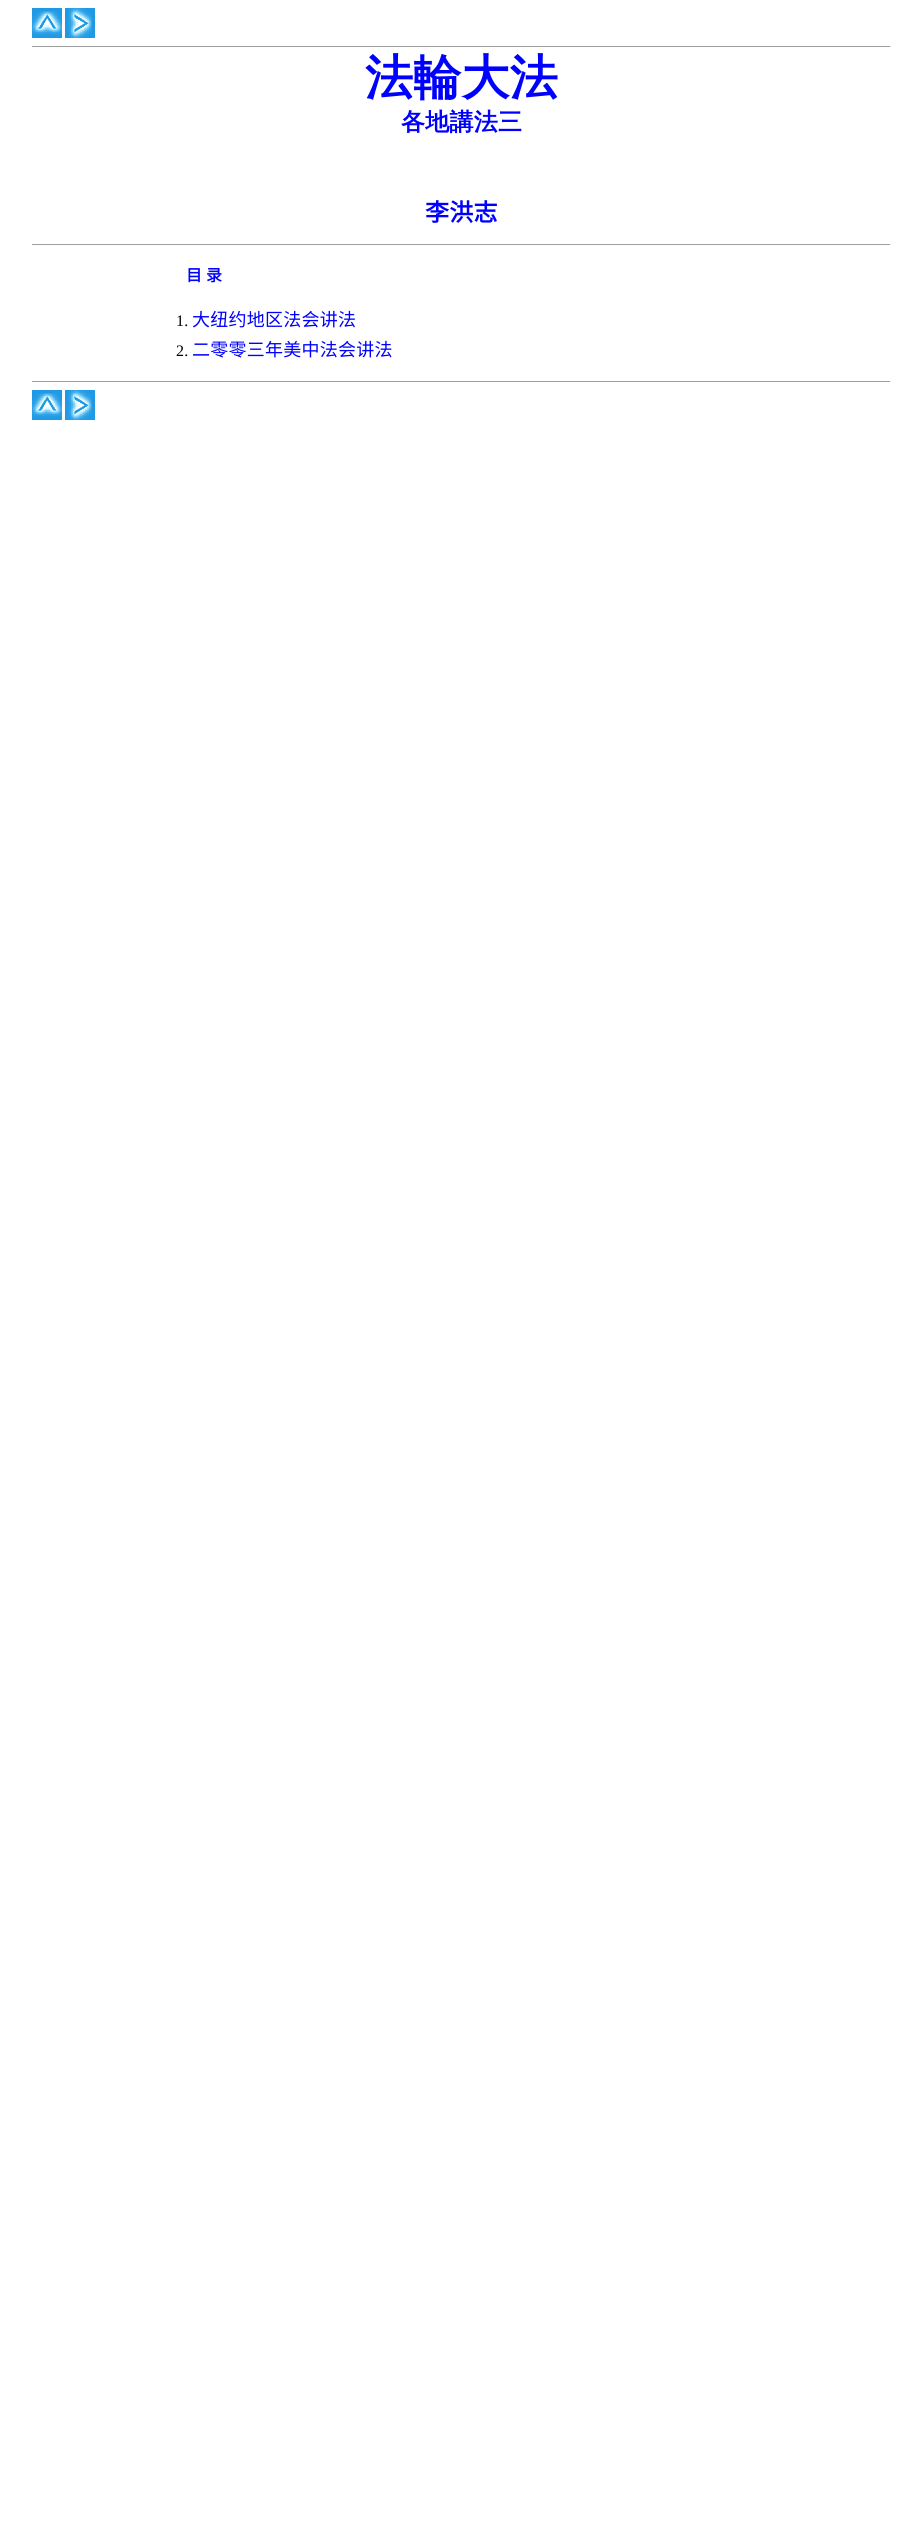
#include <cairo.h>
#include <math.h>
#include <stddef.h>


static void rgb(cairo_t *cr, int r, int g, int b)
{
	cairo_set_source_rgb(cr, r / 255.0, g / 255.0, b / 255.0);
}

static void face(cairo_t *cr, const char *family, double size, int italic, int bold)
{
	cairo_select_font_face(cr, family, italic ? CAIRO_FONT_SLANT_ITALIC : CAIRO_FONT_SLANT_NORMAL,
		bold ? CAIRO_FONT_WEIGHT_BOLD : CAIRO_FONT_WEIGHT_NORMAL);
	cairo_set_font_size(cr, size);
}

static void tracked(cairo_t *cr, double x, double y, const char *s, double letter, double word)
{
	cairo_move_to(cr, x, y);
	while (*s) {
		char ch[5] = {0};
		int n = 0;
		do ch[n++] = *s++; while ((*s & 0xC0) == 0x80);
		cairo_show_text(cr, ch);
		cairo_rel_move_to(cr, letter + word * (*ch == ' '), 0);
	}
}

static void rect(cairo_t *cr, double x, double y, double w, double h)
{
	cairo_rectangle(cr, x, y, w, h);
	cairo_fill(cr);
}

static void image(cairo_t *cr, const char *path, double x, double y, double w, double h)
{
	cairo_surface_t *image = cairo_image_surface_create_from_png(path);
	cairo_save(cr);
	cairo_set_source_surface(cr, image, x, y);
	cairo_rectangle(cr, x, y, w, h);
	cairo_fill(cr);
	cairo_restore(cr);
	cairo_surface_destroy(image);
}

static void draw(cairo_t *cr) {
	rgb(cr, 255, 255, 255);
	cairo_paint(cr);
	image(cr, "image0.png", 32, 8, 30, 30);
	image(cr, "image1.png", 65, 8, 30, 30);
	rgb(cr, 159, 159, 159);
	rect(cr, 32, 46, 859, 1);
	rgb(cr, 238, 238, 238);
	rect(cr, 890, 46, 1, 1);
	face(cr, "WenQuanYi Zen Hei", 48, 0, 1);
	rgb(cr, 0, 0, 255);
	tracked(cr, 365, 94, "法輪大法", 0.25, 0);
	face(cr, "WenQuanYi Zen Hei", 24, 0, 1);
	tracked(cr, 401, 130, "各地講法三", 0.25, 0);
	face(cr, "Noto Sans CJK SC", 24, 0, 1);
	tracked(cr, 425, 221, "李洪志", 0.25, 0);
	rgb(cr, 159, 159, 159);
	rect(cr, 32, 244, 859, 1);
	rgb(cr, 238, 238, 238);
	rect(cr, 890, 244, 1, 1);
	face(cr, "Noto Sans CJK SC", 16, 0, 1);
	rgb(cr, 0, 0, 255);
	tracked(cr, 186, 281, "目", 0.25, 0);
	tracked(cr, 206, 281, "录", 0.25, 0);
	face(cr, "Liberation Serif", 16, 0, 0);
	rgb(cr, 0, 0, 0);
	tracked(cr, 176, 326, "1.", 0.25, 0);
	face(cr, "Noto Sans CJK SC", 18, 0, 0);
	rgb(cr, 0, 0, 255);
	tracked(cr, 192, 326, "大纽约地区法会讲法", 0.25, 0);
	face(cr, "Liberation Serif", 16, 0, 0);
	rgb(cr, 0, 0, 0);
	tracked(cr, 176, 356, "2.", 0.25, 0);
	face(cr, "Noto Sans CJK SC", 18, 0, 0);
	rgb(cr, 0, 0, 255);
	tracked(cr, 192, 356, "二零零三年美中法会讲法", 0.25, 0);
	rgb(cr, 159, 159, 159);
	rect(cr, 32, 381, 859, 1);
	rgb(cr, 238, 238, 238);
	rect(cr, 890, 381, 1, 1);
	image(cr, "image0.png", 32, 390, 30, 30);
	image(cr, "image1.png", 65, 390, 30, 30);
}

int main(void) {
	cairo_surface_t *surface = cairo_image_surface_create(CAIRO_FORMAT_RGB24, 923, 2531);
	cairo_t *cr = cairo_create(surface);
	cairo_font_options_t *options = cairo_font_options_create();
	cairo_font_options_set_hint_metrics(options, CAIRO_HINT_METRICS_OFF);
	cairo_font_options_set_hint_style(options, CAIRO_HINT_STYLE_NONE);
	cairo_set_font_options(cr, options);
	cairo_set_miter_limit(cr, 4);
	draw(cr);
	cairo_surface_write_to_png(surface, "render.png");
	cairo_font_options_destroy(options);
	cairo_destroy(cr);
	cairo_surface_destroy(surface);
	return 0;
}
